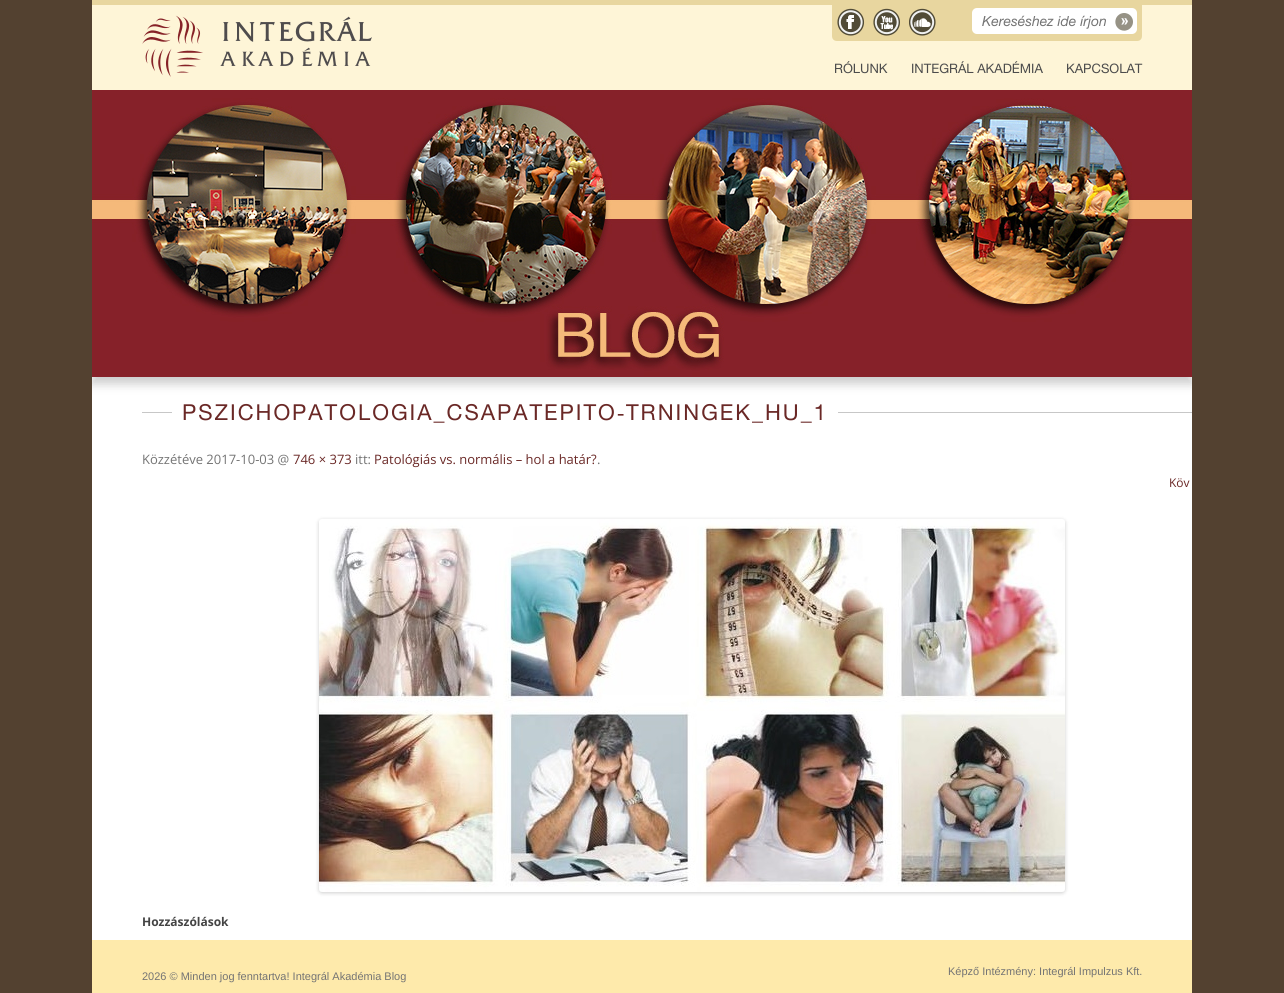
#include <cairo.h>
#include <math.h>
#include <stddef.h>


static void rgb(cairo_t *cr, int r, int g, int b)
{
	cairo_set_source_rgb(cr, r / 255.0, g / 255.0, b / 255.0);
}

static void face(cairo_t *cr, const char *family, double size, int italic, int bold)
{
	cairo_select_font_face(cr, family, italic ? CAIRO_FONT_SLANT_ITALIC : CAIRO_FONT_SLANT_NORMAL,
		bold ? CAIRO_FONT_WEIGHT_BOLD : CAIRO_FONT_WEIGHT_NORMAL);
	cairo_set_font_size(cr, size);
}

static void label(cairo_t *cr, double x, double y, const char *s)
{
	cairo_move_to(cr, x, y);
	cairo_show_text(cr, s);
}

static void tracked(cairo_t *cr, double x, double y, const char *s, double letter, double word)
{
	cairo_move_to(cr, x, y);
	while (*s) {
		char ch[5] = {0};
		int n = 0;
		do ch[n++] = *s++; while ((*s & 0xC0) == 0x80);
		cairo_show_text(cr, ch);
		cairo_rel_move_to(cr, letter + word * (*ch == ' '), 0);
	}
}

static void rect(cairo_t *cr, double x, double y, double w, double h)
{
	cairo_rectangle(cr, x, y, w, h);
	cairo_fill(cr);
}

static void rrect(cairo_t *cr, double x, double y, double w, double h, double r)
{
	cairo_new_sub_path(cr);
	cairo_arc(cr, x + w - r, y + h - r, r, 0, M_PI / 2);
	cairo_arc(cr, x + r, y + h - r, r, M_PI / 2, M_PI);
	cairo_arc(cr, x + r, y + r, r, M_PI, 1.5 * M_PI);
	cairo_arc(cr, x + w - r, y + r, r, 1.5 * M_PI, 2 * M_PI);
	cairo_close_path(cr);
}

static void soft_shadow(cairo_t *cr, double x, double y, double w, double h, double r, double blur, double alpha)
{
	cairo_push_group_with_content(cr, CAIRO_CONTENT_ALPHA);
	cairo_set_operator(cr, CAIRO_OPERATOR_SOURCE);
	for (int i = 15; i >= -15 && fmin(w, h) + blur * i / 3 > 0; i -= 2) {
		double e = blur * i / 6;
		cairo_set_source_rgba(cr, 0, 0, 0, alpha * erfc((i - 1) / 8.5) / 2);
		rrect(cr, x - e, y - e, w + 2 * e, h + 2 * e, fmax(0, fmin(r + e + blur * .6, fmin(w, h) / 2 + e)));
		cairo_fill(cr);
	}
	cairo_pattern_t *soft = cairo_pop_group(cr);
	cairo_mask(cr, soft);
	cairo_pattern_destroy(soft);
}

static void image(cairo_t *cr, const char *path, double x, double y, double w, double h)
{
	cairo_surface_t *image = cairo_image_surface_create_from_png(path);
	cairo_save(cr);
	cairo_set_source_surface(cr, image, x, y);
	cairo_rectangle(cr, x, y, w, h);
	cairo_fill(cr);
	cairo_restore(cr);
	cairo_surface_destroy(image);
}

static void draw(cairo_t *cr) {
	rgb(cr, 83, 65, 48);
	cairo_paint(cr);
	rgb(cr, 255, 255, 255);
	rect(cr, 92, 377, 1100, 563);
	cairo_save(cr);
	cairo_rectangle(cr, 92, 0, 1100, 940);
	cairo_clip(cr);
	rgb(cr, 0, 0, 0);
	soft_shadow(cr, 92, 7, 1100, 377, 0, 5, 0.2);
	cairo_restore(cr);
	rgb(cr, 254, 245, 215);
	rect(cr, 92, 5, 1100, 85);
	image(cr, "image0.png", 92, 90, 1100, 287);
	rgb(cr, 232, 214, 159);
	rect(cr, 92, 0, 1100, 5);
	image(cr, "image1.png", 142, 15, 230, 62);
	cairo_new_path(cr);
	cairo_move_to(cr, 832, 5);
	cairo_line_to(cr, 1142, 5);
	cairo_line_to(cr, 1142, 36);
	cairo_curve_to(cr, 1142, 39, 1140, 41, 1137, 41);
	cairo_line_to(cr, 837, 41);
	cairo_curve_to(cr, 834, 41, 832, 39, 832, 36);
	cairo_close_path(cr);
	cairo_fill(cr);
	image(cr, "image2.png", 837, 8, 28, 28);
	image(cr, "image3.png", 873, 8, 27, 28);
	image(cr, "image4.png", 909, 8, 27, 28);
	rgb(cr, 255, 255, 255);
	rrect(cr, 972, 8, 165, 26, 5);
	cairo_fill(cr);
	image(cr, "image5.png", 1115, 13, 18, 18);
	face(cr, "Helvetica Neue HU", 14, 1, 0);
	rgb(cr, 116, 116, 116);
	label(cr, 982, 26, "Kereséshez ide írjon");
	face(cr, "Helvetica Neue HU", 13, 0, 0);
	rgb(cr, 76, 76, 76);
	label(cr, 834, 73, "RÓLUNK");
	label(cr, 911, 73, "INTEGRÁL AKADÉMIA");
	label(cr, 1066, 73, "KAPCSOLAT");
	rgb(cr, 199, 199, 199);
	rect(cr, 142, 412, 1050, 1);
	rgb(cr, 255, 255, 255);
	rect(cr, 172, 412, 666, 1);
	face(cr, "Helvetica Neue HU", 22, 0, 0);
	rgb(cr, 106, 40, 38);
	tracked(cr, 182, 420, "PSZICHOPATOLOGIA_CSAPATEPITO", 2, 0);
	face(cr, "Liberation Serif", 22, 0, 0);
	tracked(cr, 617, 420, "-", 2, 0);
	face(cr, "Helvetica Neue HU", 22, 0, 0);
	tracked(cr, 626, 420, "TRNINGEK_HU_1", 2, 0);
	face(cr, "Open Sans", 13, 0, 0);
	rgb(cr, 116, 116, 116);
	label(cr, 142, 464, "Közzétéve 2017-10-03 @");
	rgb(cr, 106, 40, 38);
	label(cr, 293, 464, "746 × 373");
	rgb(cr, 116, 116, 116);
	label(cr, 355, 464, "itt:");
	rgb(cr, 106, 40, 38);
	label(cr, 374, 464, "Patológiás vs. normális – hol a határ?");
	rgb(cr, 116, 116, 116);
	label(cr, 597, 464, ".");
	face(cr, "Open Sans", 12, 0, 0);
	rgb(cr, 106, 40, 38);
	label(cr, 1169, 487, "Köv");
	rgb(cr, 0, 0, 0);
	soft_shadow(cr, 319, 520, 746, 373, 3, 2, 0.2);
	image(cr, "image6.png", 319, 519, 746, 373);
	face(cr, "Open Sans", 12, 0, 1);
	rgb(cr, 68, 68, 68);
	label(cr, 142, 926, "Hozzászólások");
	rgb(cr, 254, 234, 171);
	rect(cr, 92, 940, 1100, 53);
	face(cr, "Liberation Sans", 11, 0, 0);
	rgb(cr, 116, 116, 116);
	label(cr, 142, 980, "2026 © Minden jog fenntartva! Integrál Akadémia Blog");
	label(cr, 948, 975, "Képző Intézmény: Integrál Impulzus Kft.");
}

int main(void) {
	cairo_surface_t *surface = cairo_image_surface_create(CAIRO_FORMAT_RGB24, 1284, 993);
	cairo_t *cr = cairo_create(surface);
	cairo_font_options_t *options = cairo_font_options_create();
	cairo_font_options_set_hint_metrics(options, CAIRO_HINT_METRICS_OFF);
	cairo_font_options_set_hint_style(options, CAIRO_HINT_STYLE_NONE);
	cairo_set_font_options(cr, options);
	cairo_set_miter_limit(cr, 4);
	draw(cr);
	cairo_surface_write_to_png(surface, "render.png");
	cairo_font_options_destroy(options);
	cairo_destroy(cr);
	cairo_surface_destroy(surface);
	return 0;
}
